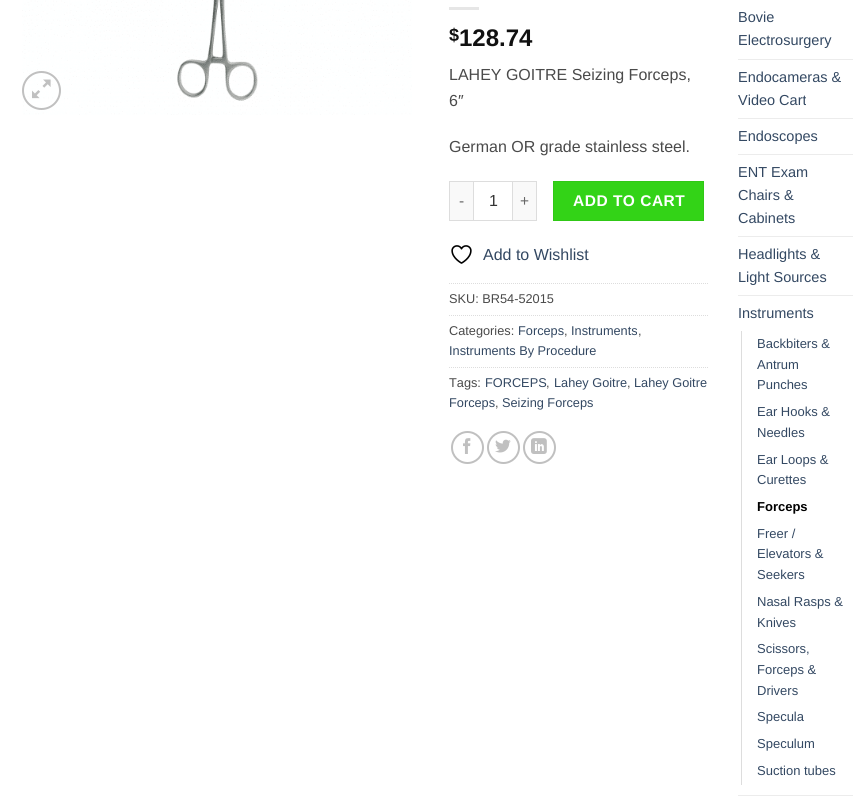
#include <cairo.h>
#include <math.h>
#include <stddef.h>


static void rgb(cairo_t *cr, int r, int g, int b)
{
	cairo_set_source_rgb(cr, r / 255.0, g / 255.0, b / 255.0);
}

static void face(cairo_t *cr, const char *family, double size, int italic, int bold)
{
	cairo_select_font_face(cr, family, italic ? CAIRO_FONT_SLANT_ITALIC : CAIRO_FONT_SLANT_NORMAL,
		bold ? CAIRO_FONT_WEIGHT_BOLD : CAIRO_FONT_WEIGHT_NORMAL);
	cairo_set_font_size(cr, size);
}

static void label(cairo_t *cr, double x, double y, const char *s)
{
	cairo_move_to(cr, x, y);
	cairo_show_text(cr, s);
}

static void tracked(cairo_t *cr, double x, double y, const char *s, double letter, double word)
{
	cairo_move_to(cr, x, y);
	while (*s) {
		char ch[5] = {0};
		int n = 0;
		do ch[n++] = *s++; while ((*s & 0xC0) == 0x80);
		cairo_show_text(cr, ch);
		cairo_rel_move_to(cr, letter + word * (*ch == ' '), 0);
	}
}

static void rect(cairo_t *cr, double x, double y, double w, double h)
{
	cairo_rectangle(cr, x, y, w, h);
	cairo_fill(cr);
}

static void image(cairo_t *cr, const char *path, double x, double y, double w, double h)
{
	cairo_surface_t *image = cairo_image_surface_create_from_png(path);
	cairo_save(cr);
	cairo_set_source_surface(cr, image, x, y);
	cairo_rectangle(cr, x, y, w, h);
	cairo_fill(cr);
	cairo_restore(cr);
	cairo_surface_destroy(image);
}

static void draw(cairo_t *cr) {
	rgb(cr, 255, 255, 255);
	cairo_paint(cr);
	image(cr, "image0.png", 22, 0, 390, 115);
	cairo_arc(cr, 41.5, 90.5, 18.5, 0, 2 * M_PI);
	rgb(cr, 192, 192, 192);
	cairo_stroke(cr);
	image(cr, "image1.png", 32, 79, 19, 20);
	rgb(cr, 230, 230, 230);
	rect(cr, 449, 7, 30, 3);
	face(cr, "Liberation Sans", 18, 0, 1);
	rgb(cr, 17, 17, 17);
	label(cr, 449, 41, "$");
	face(cr, "Liberation Sans", 24, 0, 1);
	label(cr, 459, 46, "128.74");
	face(cr, "Liberation Sans", 16, 0, 0);
	rgb(cr, 74, 74, 74);
	label(cr, 449, 80, "LAHEY GOITRE Seizing Forceps,");
	label(cr, 449, 106, "6″");
	label(cr, 449, 152, "German OR grade stainless steel.");
	rgb(cr, 249, 249, 249);
	rect(cr, 450, 182, 23, 38);
	rgb(cr, 221, 221, 221);
	rect(cr, 449, 181, 24, 1);
	rect(cr, 449, 220, 24, 1);
	rect(cr, 449, 181, 1, 40);
	face(cr, "Liberation Sans", 15.5, 0, 0);
	rgb(cr, 102, 102, 102);
	tracked(cr, 459, 206, "-", 0.5, 0);
	cairo_rectangle(cr, 473.5, 181.5, 39, 39);
	rgb(cr, 221, 221, 221);
	cairo_set_line_width(cr, 1);
	cairo_stroke(cr);
	face(cr, "Liberation Sans", 16, 0, 0);
	rgb(cr, 51, 51, 51);
	label(cr, 489, 206, "1");
	rgb(cr, 249, 249, 249);
	rect(cr, 513, 182, 23, 38);
	rgb(cr, 221, 221, 221);
	rect(cr, 513, 181, 24, 1);
	rect(cr, 536, 181, 1, 40);
	rect(cr, 513, 220, 24, 1);
	face(cr, "Liberation Sans", 15.5, 0, 0);
	rgb(cr, 102, 102, 102);
	tracked(cr, 520, 206, "+", 0.5, 0);
	rgb(cr, 51, 211, 23);
	cairo_rectangle(cr, 553.5, 181.5, 150, 39);
	cairo_fill_preserve(cr);
	rgb(cr, 48, 200, 22);
	cairo_stroke(cr);
	face(cr, "Liberation Sans", 15.5, 0, 1);
	rgb(cr, 255, 255, 255);
	tracked(cr, 573, 206, "ADD TO CART", 0.5, 0);
	image(cr, "image2.png", 451, 245, 21, 19);
	face(cr, "Liberation Sans", 16, 0, 0);
	rgb(cr, 51, 72, 98);
	label(cr, 483, 260, "Add to Wishlist");
	cairo_new_path(cr);
	cairo_move_to(cr, 449, 283.5);
	cairo_line_to(cr, 708, 283.5);
	rgb(cr, 221, 221, 221);
	cairo_set_dash(cr, (double[]){1, 1}, 2, 0);
	cairo_stroke(cr);
	face(cr, "Liberation Sans", 12.75, 0, 0);
	rgb(cr, 74, 74, 74);
	label(cr, 449, 303, "SKU: BR54-52015");
	cairo_new_path(cr);
	cairo_move_to(cr, 449, 315.5);
	cairo_line_to(cr, 708, 315.5);
	rgb(cr, 221, 221, 221);
	cairo_stroke(cr);
	rgb(cr, 74, 74, 74);
	label(cr, 449, 335, "Categories:");
	rgb(cr, 51, 72, 98);
	label(cr, 518, 335, "Forceps");
	rgb(cr, 74, 74, 74);
	label(cr, 564, 335, ",");
	rgb(cr, 51, 72, 98);
	label(cr, 571, 335, "Instruments");
	rgb(cr, 74, 74, 74);
	label(cr, 638, 335, ",");
	rgb(cr, 51, 72, 98);
	label(cr, 449, 355, "Instruments By Procedure");
	cairo_new_path(cr);
	cairo_move_to(cr, 449, 367.5);
	cairo_line_to(cr, 708, 367.5);
	rgb(cr, 221, 221, 221);
	cairo_stroke(cr);
	rgb(cr, 74, 74, 74);
	label(cr, 449, 387, "Tags:");
	rgb(cr, 51, 72, 98);
	label(cr, 485, 387, "FORCEPS");
	rgb(cr, 74, 74, 74);
	label(cr, 546, 387, ",");
	rgb(cr, 51, 72, 98);
	label(cr, 554, 387, "Lahey Goitre");
	rgb(cr, 74, 74, 74);
	label(cr, 627, 387, ",");
	rgb(cr, 51, 72, 98);
	label(cr, 634, 387, "Lahey Goitre");
	label(cr, 449, 407, "Forceps");
	rgb(cr, 74, 74, 74);
	label(cr, 495, 407, ",");
	rgb(cr, 51, 72, 98);
	label(cr, 502, 407, "Seizing Forceps");
	cairo_new_path(cr);
	cairo_arc(cr, 467.5, 447.5, 15.5, 0, 2 * M_PI);
	rgb(cr, 192, 192, 192);
	cairo_set_line_width(cr, 2);
	cairo_set_dash(cr, NULL, 0, 0);
	cairo_stroke(cr);
	image(cr, "image3.png", 463, 438, 8, 16);
	cairo_arc(cr, 503.5, 447.5, 15.5, 0, 2 * M_PI);
	cairo_stroke(cr);
	image(cr, "image4.png", 495, 439, 16, 14);
	cairo_arc(cr, 539.5, 447.5, 15.5, 0, 2 * M_PI);
	cairo_stroke(cr);
	image(cr, "image5.png", 531, 438, 16, 16);
	face(cr, "Liberation Sans", 14.5, 0, 0);
	rgb(cr, 51, 72, 98);
	label(cr, 738, 22, "Bovie");
	label(cr, 738, 45, "Electrosurgery");
	rgb(cr, 236, 236, 236);
	rect(cr, 738, 59, 115, 1);
	rgb(cr, 51, 72, 98);
	label(cr, 738, 82, "Endocameras &");
	label(cr, 738, 105, "Video Cart");
	rgb(cr, 236, 236, 236);
	rect(cr, 738, 118, 115, 1);
	rgb(cr, 51, 72, 98);
	label(cr, 738, 141, "Endoscopes");
	rgb(cr, 236, 236, 236);
	rect(cr, 738, 154, 115, 1);
	rgb(cr, 51, 72, 98);
	label(cr, 738, 177, "ENT Exam");
	label(cr, 738, 200, "Chairs &");
	label(cr, 738, 223, "Cabinets");
	rgb(cr, 236, 236, 236);
	rect(cr, 738, 236, 115, 1);
	rgb(cr, 51, 72, 98);
	label(cr, 738, 259, "Headlights &");
	label(cr, 738, 282, "Light Sources");
	rgb(cr, 236, 236, 236);
	rect(cr, 738, 295, 115, 1);
	rgb(cr, 51, 72, 98);
	label(cr, 738, 318, "Instruments");
	rgb(cr, 221, 221, 221);
	rect(cr, 741, 331, 1, 454);
	face(cr, "Liberation Sans", 13, 0, 0);
	rgb(cr, 51, 72, 98);
	label(cr, 757, 348, "Backbiters &");
	label(cr, 757, 369, "Antrum");
	label(cr, 757, 389, "Punches");
	label(cr, 757, 416, "Ear Hooks &");
	label(cr, 757, 437, "Needles");
	label(cr, 757, 464, "Ear Loops &");
	label(cr, 757, 484, "Curettes");
	face(cr, "Liberation Sans", 13, 0, 1);
	rgb(cr, 0, 0, 0);
	label(cr, 757, 511, "Forceps");
	face(cr, "Liberation Sans", 13, 0, 0);
	rgb(cr, 51, 72, 98);
	label(cr, 757, 538, "Freer /");
	label(cr, 757, 558, "Elevators &");
	label(cr, 757, 579, "Seekers");
	label(cr, 757, 606, "Nasal Rasps &");
	label(cr, 757, 627, "Knives");
	label(cr, 757, 653, "Scissors,");
	label(cr, 757, 674, "Forceps &");
	label(cr, 757, 695, "Drivers");
	label(cr, 757, 721, "Specula");
	label(cr, 757, 748, "Speculum");
	label(cr, 757, 775, "Suction tubes");
	rgb(cr, 236, 236, 236);
	rect(cr, 738, 795, 115, 1);
}

int main(void) {
	cairo_surface_t *surface = cairo_image_surface_create(CAIRO_FORMAT_RGB24, 868, 806);
	cairo_t *cr = cairo_create(surface);
	cairo_font_options_t *options = cairo_font_options_create();
	cairo_font_options_set_hint_metrics(options, CAIRO_HINT_METRICS_OFF);
	cairo_font_options_set_hint_style(options, CAIRO_HINT_STYLE_NONE);
	cairo_set_font_options(cr, options);
	cairo_set_miter_limit(cr, 4);
	draw(cr);
	cairo_surface_write_to_png(surface, "render.png");
	cairo_font_options_destroy(options);
	cairo_destroy(cr);
	cairo_surface_destroy(surface);
	return 0;
}
